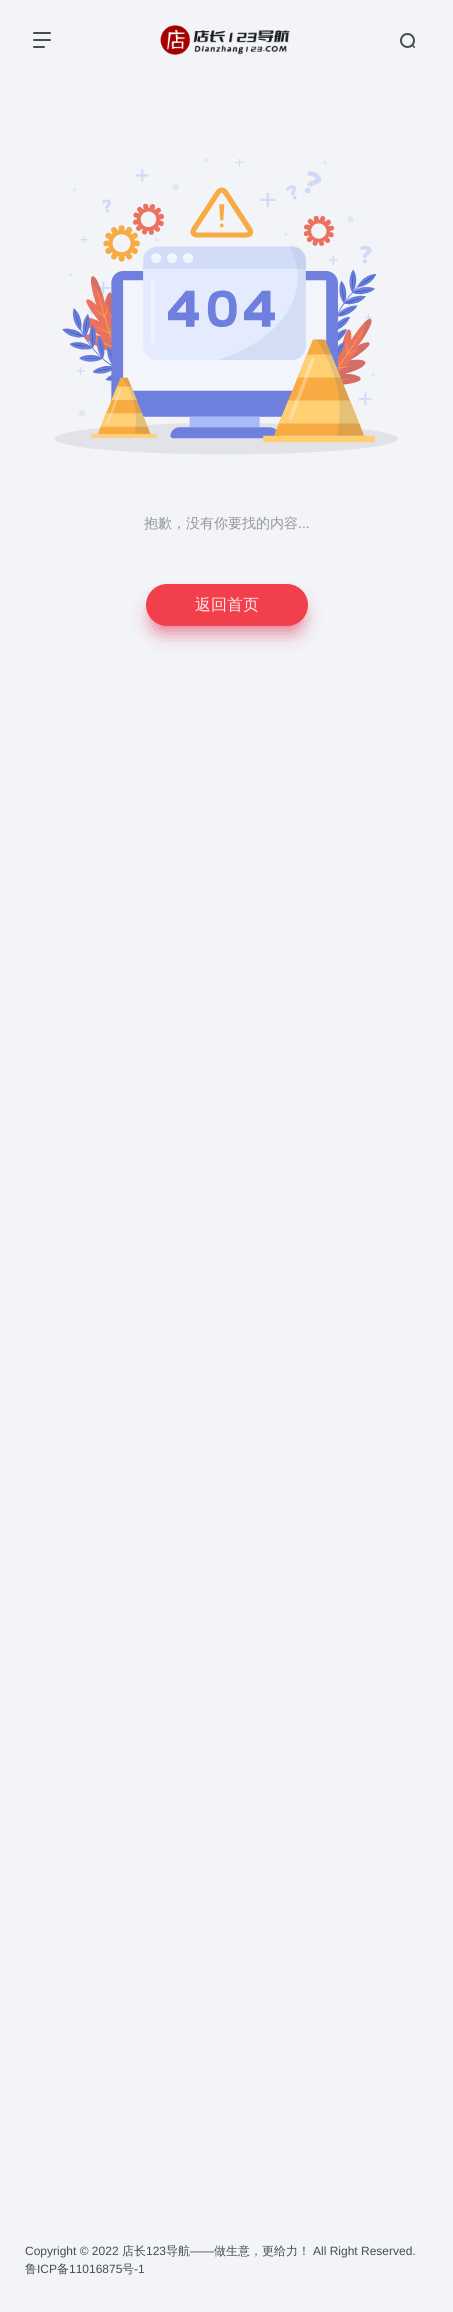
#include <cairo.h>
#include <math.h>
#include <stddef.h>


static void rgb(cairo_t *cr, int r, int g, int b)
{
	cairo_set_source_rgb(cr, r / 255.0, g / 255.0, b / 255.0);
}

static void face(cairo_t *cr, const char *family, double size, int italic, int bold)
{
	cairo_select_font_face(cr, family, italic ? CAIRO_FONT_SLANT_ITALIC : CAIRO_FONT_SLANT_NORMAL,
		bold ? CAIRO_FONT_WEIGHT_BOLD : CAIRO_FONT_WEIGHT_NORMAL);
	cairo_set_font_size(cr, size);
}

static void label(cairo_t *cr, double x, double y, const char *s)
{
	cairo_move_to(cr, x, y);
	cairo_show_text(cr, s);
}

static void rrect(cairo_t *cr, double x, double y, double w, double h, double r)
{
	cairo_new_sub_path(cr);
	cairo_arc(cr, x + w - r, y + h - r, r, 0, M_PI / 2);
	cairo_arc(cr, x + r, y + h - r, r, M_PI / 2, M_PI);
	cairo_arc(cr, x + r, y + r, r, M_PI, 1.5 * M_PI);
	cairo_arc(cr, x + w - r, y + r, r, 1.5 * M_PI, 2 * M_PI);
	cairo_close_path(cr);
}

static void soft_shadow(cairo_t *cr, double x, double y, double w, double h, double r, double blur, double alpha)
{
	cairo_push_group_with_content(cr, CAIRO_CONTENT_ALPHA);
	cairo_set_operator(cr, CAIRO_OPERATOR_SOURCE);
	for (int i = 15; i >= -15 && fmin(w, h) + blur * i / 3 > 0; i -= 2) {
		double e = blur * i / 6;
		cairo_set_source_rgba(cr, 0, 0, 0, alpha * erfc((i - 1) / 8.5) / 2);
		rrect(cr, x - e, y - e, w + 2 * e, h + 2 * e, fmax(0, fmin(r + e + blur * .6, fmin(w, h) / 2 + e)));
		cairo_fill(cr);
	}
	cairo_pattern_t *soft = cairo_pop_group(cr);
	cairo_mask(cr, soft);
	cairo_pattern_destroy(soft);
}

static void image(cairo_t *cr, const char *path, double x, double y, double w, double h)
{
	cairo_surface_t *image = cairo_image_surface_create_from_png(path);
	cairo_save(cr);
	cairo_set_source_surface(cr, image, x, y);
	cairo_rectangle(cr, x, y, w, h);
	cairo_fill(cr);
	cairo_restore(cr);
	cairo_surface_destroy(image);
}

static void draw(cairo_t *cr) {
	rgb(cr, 242, 244, 247);
	cairo_paint(cr);
	rgb(cr, 72, 75, 79);
	rrect(cr, 33, 32, 18, 2, 1);
	cairo_fill(cr);
	rrect(cr, 33, 39, 18, 2, 1);
	cairo_fill(cr);
	rrect(cr, 33, 46, 12, 2, 1);
	cairo_fill(cr);
	image(cr, "image0.png", 160, 25, 130, 30);
	cairo_arc(cr, 407.5, 40.5, 6.5, 0, 2 * M_PI);
	cairo_stroke(cr);
	cairo_new_path(cr);
	cairo_move_to(cr, 413.5, 45);
	cairo_line_to(cr, 415, 47);
	cairo_curve_to(cr, 415.5, 47.5, 414.5, 48.5, 414, 48);
	cairo_line_to(cr, 413, 47);
	cairo_curve_to(cr, 411, 45.5, 412.5, 44, 413.5, 45);
	cairo_close_path(cr);
	cairo_fill(cr);
	image(cr, "image1.png", 55, 158, 343, 297);
	face(cr, "WenQuanYi Zen Hei Medium", 14, 0, 0);
	rgb(cr, 147, 149, 154);
	label(cr, 144, 528, "抱歉，没有你要找的内容");
	face(cr, "Liberation Sans", 14, 0, 0);
	label(cr, 298, 528, "...");
	rgb(cr, 219, 31, 66);
	soft_shadow(cr, 154, 604, 146, 26, 13, 10, 0.7);
	rgb(cr, 241, 64, 75);
	rrect(cr, 146, 584, 162, 42, 21);
	cairo_fill(cr);
	face(cr, "WenQuanYi Zen Hei Medium", 16, 0, 0);
	rgb(cr, 255, 231, 235);
	label(cr, 195, 610, "返回首页");
	face(cr, "Liberation Sans", 12, 0, 0);
	rgb(cr, 72, 75, 79);
	label(cr, 25, 2255, "Copyright © 2022");
	face(cr, "WenQuanYi Zen Hei Medium", 12, 0, 0);
	label(cr, 122, 2255, "店长");
	face(cr, "Liberation Sans", 12, 0, 0);
	label(cr, 146, 2255, "123");
	face(cr, "WenQuanYi Zen Hei Medium", 12, 0, 0);
	label(cr, 166, 2255, "导航");
	face(cr, "Liberation Sans", 12, 0, 0);
	label(cr, 190, 2255, "——");
	face(cr, "WenQuanYi Zen Hei Medium", 12, 0, 0);
	label(cr, 214, 2255, "做生意，更给力！");
	face(cr, "Liberation Sans", 12, 0, 0);
	label(cr, 313, 2255, "All Right Reserved.");
	face(cr, "WenQuanYi Zen Hei Medium", 12, 0, 0);
	label(cr, 25, 2273, "鲁");
	face(cr, "Liberation Sans", 12, 0, 0);
	label(cr, 37, 2273, "ICP");
	face(cr, "WenQuanYi Zen Hei Medium", 12, 0, 0);
	label(cr, 57, 2273, "备");
	face(cr, "Liberation Sans", 12, 0, 0);
	label(cr, 69, 2273, "11016875");
	face(cr, "WenQuanYi Zen Hei Medium", 12, 0, 0);
	label(cr, 122, 2273, "号");
	face(cr, "Liberation Sans", 12, 0, 0);
	label(cr, 134, 2273, "-1");
}

int main(void) {
	cairo_surface_t *surface = cairo_image_surface_create(CAIRO_FORMAT_RGB24, 453, 2312);
	cairo_t *cr = cairo_create(surface);
	cairo_font_options_t *options = cairo_font_options_create();
	cairo_font_options_set_hint_metrics(options, CAIRO_HINT_METRICS_OFF);
	cairo_font_options_set_hint_style(options, CAIRO_HINT_STYLE_NONE);
	cairo_set_font_options(cr, options);
	cairo_set_miter_limit(cr, 4);
	draw(cr);
	cairo_surface_write_to_png(surface, "render.png");
	cairo_font_options_destroy(options);
	cairo_destroy(cr);
	cairo_surface_destroy(surface);
	return 0;
}
